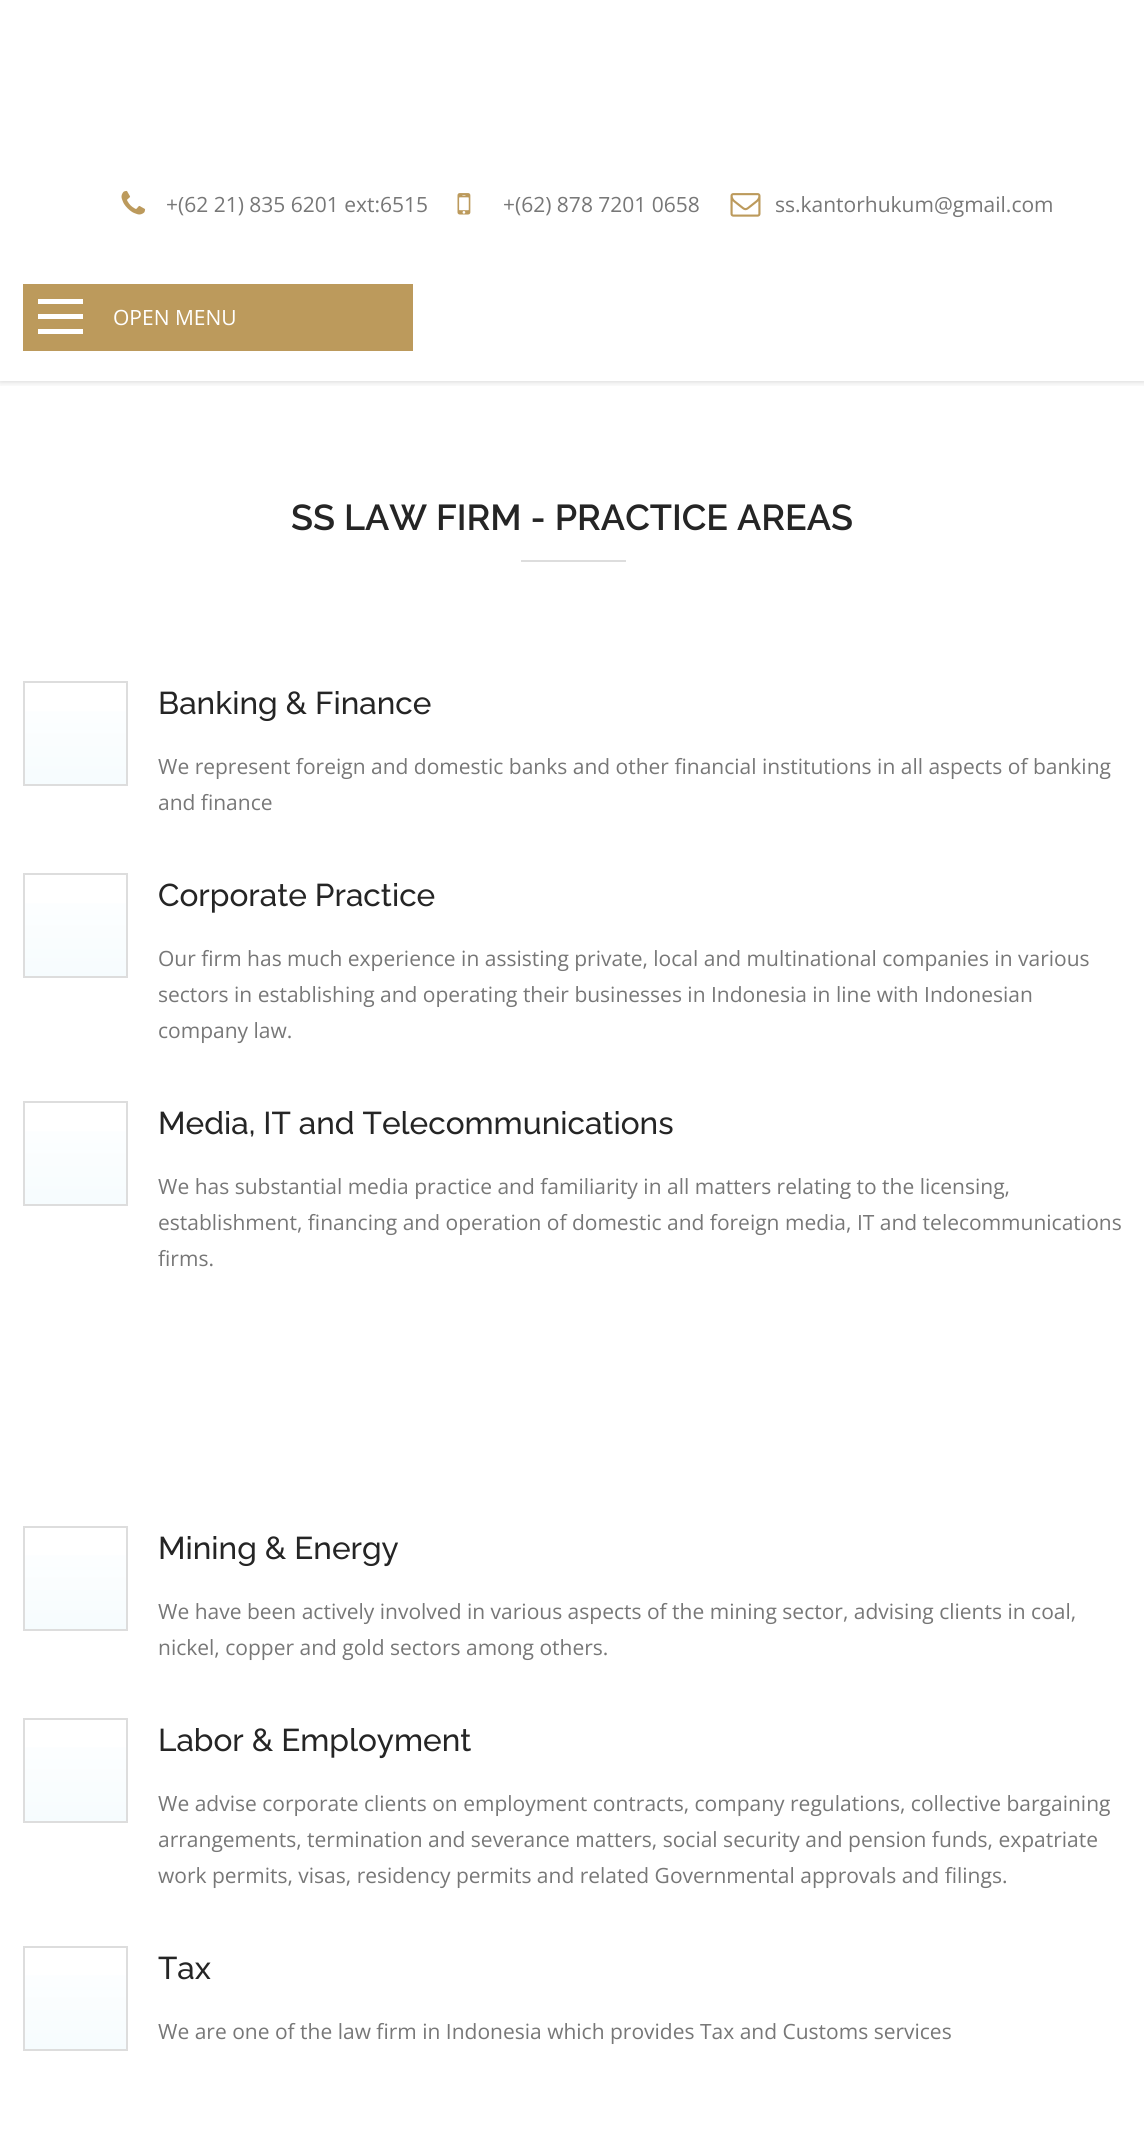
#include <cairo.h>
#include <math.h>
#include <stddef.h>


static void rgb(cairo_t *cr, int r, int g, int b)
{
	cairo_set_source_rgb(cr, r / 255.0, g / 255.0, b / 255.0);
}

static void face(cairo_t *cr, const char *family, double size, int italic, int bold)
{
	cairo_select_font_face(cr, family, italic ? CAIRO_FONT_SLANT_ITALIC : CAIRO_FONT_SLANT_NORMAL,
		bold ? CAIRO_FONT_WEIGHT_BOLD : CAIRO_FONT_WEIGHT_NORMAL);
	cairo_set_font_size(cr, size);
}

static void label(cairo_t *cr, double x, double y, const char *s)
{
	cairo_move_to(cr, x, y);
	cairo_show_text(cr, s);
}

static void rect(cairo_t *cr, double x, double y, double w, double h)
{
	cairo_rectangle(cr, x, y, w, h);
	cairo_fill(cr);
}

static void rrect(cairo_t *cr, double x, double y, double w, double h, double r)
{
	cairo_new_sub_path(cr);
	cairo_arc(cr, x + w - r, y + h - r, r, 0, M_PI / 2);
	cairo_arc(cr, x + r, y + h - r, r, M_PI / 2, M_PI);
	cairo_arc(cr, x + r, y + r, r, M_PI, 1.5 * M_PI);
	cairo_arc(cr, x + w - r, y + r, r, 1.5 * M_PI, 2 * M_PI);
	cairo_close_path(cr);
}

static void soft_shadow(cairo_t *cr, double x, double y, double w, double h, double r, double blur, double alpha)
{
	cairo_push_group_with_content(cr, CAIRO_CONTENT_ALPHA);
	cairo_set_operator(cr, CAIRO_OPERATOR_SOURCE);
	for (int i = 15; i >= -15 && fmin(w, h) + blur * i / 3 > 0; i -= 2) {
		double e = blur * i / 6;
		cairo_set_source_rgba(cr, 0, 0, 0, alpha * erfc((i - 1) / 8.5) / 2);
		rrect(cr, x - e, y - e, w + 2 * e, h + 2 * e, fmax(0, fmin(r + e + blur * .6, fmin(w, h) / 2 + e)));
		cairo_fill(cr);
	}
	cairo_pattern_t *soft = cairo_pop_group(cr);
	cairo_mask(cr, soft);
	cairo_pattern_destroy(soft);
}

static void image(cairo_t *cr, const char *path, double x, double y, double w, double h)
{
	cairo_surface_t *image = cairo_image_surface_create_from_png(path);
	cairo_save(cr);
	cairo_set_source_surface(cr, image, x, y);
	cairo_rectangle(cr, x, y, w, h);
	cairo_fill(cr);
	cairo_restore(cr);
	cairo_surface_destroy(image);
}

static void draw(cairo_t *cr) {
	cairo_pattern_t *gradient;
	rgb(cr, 255, 255, 255);
	cairo_paint(cr);
	cairo_save(cr);
	cairo_rectangle(cr, 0, 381, 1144, 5);
	cairo_clip(cr);
	rgb(cr, 0, 0, 0);
	soft_shadow(cr, 0, 0, 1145, 381, 0, 4, 0.2);
	cairo_restore(cr);
	image(cr, "image0.png", 121, 190, 25, 25);
	face(cr, "Open Sans", 21, 0, 0);
	rgb(cr, 119, 119, 119);
	label(cr, 166, 212, "+(62 21) 835 6201 ext:6515");
	image(cr, "image1.png", 457, 193, 14, 22);
	label(cr, 503, 212, "+(62) 878 7201 0658");
	image(cr, "image2.png", 730, 193, 31, 24);
	label(cr, 775, 212, "ss.kantorhukum@gmail.com");
	rgb(cr, 188, 154, 92);
	rect(cr, 23, 284, 390, 67);
	rgb(cr, 255, 255, 255);
	rect(cr, 38, 329, 45, 5);
	rect(cr, 38, 314, 45, 5);
	rect(cr, 38, 299, 45, 5);
	label(cr, 113, 325, "OPEN MENU");
	face(cr, "Raleway SemiBold", 36, 0, 0);
	rgb(cr, 37, 37, 37);
	label(cr, 291, 530, "SS LAW FIRM - PRACTICE AREAS");
	rgb(cr, 221, 221, 221);
	rect(cr, 521, 560, 105, 2);
	gradient = cairo_pattern_create_linear(75, 683, 75, 785);
	cairo_pattern_add_color_stop_rgba(gradient, 0, 1, 1, 1, 1);
	cairo_pattern_add_color_stop_rgba(gradient, 1, 0.965, 0.988, 0.996, 1);
	cairo_set_source(cr, gradient);
	cairo_pattern_destroy(gradient);
	rect(cr, 25, 711, 101, 73);
	cairo_rectangle(cr, 24, 682, 103, 103);
	rgb(cr, 221, 221, 221);
	cairo_stroke(cr);
	face(cr, "Raleway Medium", 31.5, 0, 0);
	rgb(cr, 37, 37, 37);
	label(cr, 158, 714, "Banking & Finance");
	face(cr, "Open Sans", 21, 0, 0);
	rgb(cr, 119, 119, 119);
	label(cr, 158, 774, "We represent foreign and domestic banks and other financial institutions in all aspects of banking");
	label(cr, 158, 810, "and finance");
	gradient = cairo_pattern_create_linear(75, 875, 75, 977);
	cairo_pattern_add_color_stop_rgba(gradient, 0, 1, 1, 1, 1);
	cairo_pattern_add_color_stop_rgba(gradient, 1, 0.965, 0.988, 0.996, 1);
	cairo_set_source(cr, gradient);
	cairo_pattern_destroy(gradient);
	rect(cr, 25, 903, 101, 73);
	cairo_rectangle(cr, 24, 874, 103, 103);
	rgb(cr, 221, 221, 221);
	cairo_stroke(cr);
	face(cr, "Raleway Medium", 31.5, 0, 0);
	rgb(cr, 37, 37, 37);
	label(cr, 158, 906, "Corporate Practice");
	face(cr, "Open Sans", 21, 0, 0);
	rgb(cr, 119, 119, 119);
	label(cr, 158, 966, "Our firm has much experience in assisting private, local and multinational companies in various");
	label(cr, 158, 1002, "sectors in establishing and operating their businesses in Indonesia in line with Indonesian");
	label(cr, 158, 1038, "company law.");
	gradient = cairo_pattern_create_linear(75, 1103, 75, 1205);
	cairo_pattern_add_color_stop_rgba(gradient, 0, 1, 1, 1, 1);
	cairo_pattern_add_color_stop_rgba(gradient, 1, 0.965, 0.988, 0.996, 1);
	cairo_set_source(cr, gradient);
	cairo_pattern_destroy(gradient);
	rect(cr, 25, 1131, 101, 73);
	cairo_rectangle(cr, 24, 1102, 103, 103);
	rgb(cr, 221, 221, 221);
	cairo_stroke(cr);
	face(cr, "Raleway Medium", 31.5, 0, 0);
	rgb(cr, 37, 37, 37);
	label(cr, 158, 1134, "Media, IT and Telecommunications");
	face(cr, "Open Sans", 21, 0, 0);
	rgb(cr, 119, 119, 119);
	label(cr, 158, 1194, "We has substantial media practice and familiarity in all matters relating to the licensing,");
	label(cr, 158, 1230, "establishment, financing and operation of domestic and foreign media, IT and telecommunications");
	label(cr, 158, 1266, "firms.");
	gradient = cairo_pattern_create_linear(75, 1527, 75, 1629);
	cairo_pattern_add_color_stop_rgba(gradient, 0, 1, 1, 1, 1);
	cairo_pattern_add_color_stop_rgba(gradient, 1, 0.965, 0.988, 0.996, 1);
	cairo_set_source(cr, gradient);
	cairo_pattern_destroy(gradient);
	rect(cr, 25, 1555, 101, 74);
	cairo_rectangle(cr, 24, 1527, 103, 103);
	rgb(cr, 221, 221, 221);
	cairo_stroke(cr);
	face(cr, "Raleway Medium", 31.5, 0, 0);
	rgb(cr, 37, 37, 37);
	label(cr, 158, 1559, "Mining & Energy");
	face(cr, "Open Sans", 21, 0, 0);
	rgb(cr, 119, 119, 119);
	label(cr, 158, 1619, "We have been actively involved in various aspects of the mining sector, advising clients in coal,");
	label(cr, 158, 1655, "nickel, copper and gold sectors among others.");
	gradient = cairo_pattern_create_linear(75, 1719, 75, 1821);
	cairo_pattern_add_color_stop_rgba(gradient, 0, 1, 1, 1, 1);
	cairo_pattern_add_color_stop_rgba(gradient, 1, 0.965, 0.988, 0.996, 1);
	cairo_set_source(cr, gradient);
	cairo_pattern_destroy(gradient);
	rect(cr, 25, 1747, 101, 74);
	cairo_rectangle(cr, 24, 1719, 103, 103);
	rgb(cr, 221, 221, 221);
	cairo_stroke(cr);
	face(cr, "Raleway Medium", 31.5, 0, 0);
	rgb(cr, 37, 37, 37);
	label(cr, 158, 1751, "Labor & Employment");
	face(cr, "Open Sans", 21, 0, 0);
	rgb(cr, 119, 119, 119);
	label(cr, 158, 1811, "We advise corporate clients on employment contracts, company regulations, collective bargaining");
	label(cr, 158, 1847, "arrangements, termination and severance matters, social security and pension funds, expatriate");
	label(cr, 158, 1883, "work permits, visas, residency permits and related Governmental approvals and filings.");
	gradient = cairo_pattern_create_linear(75, 1947, 75, 2049);
	cairo_pattern_add_color_stop_rgba(gradient, 0, 1, 1, 1, 1);
	cairo_pattern_add_color_stop_rgba(gradient, 1, 0.965, 0.988, 0.996, 1);
	cairo_set_source(cr, gradient);
	cairo_pattern_destroy(gradient);
	rect(cr, 25, 1975, 101, 74);
	cairo_rectangle(cr, 24, 1947, 103, 103);
	rgb(cr, 221, 221, 221);
	cairo_stroke(cr);
	face(cr, "Raleway Medium", 31.5, 0, 0);
	rgb(cr, 37, 37, 37);
	label(cr, 158, 1979, "Tax");
	face(cr, "Open Sans", 21, 0, 0);
	rgb(cr, 119, 119, 119);
	label(cr, 158, 2039, "We are one of the law firm in Indonesia which provides Tax and Customs services");
}

int main(void) {
	cairo_surface_t *surface = cairo_image_surface_create(CAIRO_FORMAT_RGB24, 1144, 2131);
	cairo_t *cr = cairo_create(surface);
	cairo_font_options_t *options = cairo_font_options_create();
	cairo_font_options_set_hint_metrics(options, CAIRO_HINT_METRICS_OFF);
	cairo_font_options_set_hint_style(options, CAIRO_HINT_STYLE_NONE);
	cairo_set_font_options(cr, options);
	cairo_set_miter_limit(cr, 4);
	draw(cr);
	cairo_surface_write_to_png(surface, "render.png");
	cairo_font_options_destroy(options);
	cairo_destroy(cr);
	cairo_surface_destroy(surface);
	return 0;
}
